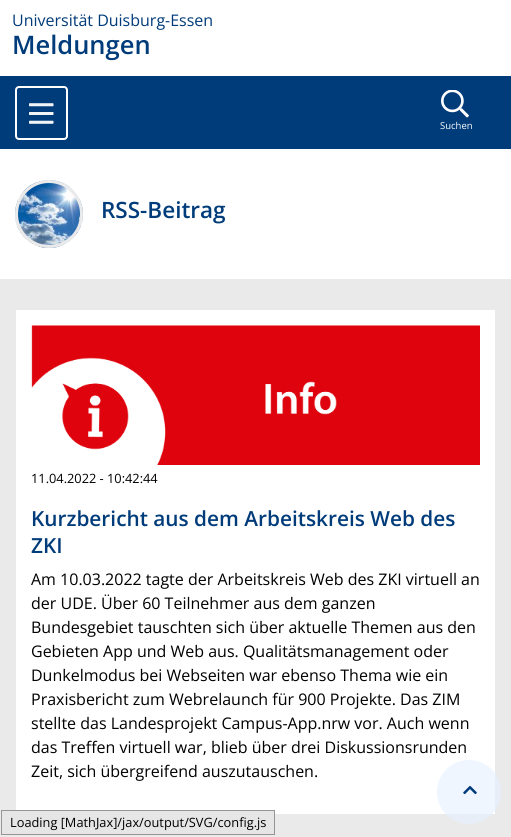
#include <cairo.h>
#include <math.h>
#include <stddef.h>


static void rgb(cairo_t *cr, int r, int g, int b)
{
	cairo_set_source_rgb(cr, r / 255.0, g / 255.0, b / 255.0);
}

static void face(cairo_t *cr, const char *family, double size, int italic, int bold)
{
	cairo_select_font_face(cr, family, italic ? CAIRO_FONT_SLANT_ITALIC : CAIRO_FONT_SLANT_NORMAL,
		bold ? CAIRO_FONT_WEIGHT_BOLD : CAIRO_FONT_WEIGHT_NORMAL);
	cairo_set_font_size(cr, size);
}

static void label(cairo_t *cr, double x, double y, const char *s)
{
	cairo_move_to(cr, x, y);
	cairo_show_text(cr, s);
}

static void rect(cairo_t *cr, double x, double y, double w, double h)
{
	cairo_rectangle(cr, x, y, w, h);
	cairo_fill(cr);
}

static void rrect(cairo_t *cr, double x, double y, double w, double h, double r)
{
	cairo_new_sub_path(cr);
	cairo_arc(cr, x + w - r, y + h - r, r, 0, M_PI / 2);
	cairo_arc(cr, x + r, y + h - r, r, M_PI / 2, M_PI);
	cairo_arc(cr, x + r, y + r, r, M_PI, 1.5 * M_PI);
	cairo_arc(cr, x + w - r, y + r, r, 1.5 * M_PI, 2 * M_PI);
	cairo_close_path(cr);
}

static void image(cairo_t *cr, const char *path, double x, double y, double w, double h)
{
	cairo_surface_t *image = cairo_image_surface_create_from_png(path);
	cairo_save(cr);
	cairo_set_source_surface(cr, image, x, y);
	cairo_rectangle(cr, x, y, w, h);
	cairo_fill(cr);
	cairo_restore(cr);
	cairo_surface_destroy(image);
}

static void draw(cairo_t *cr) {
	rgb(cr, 255, 255, 255);
	cairo_paint(cr);
	face(cr, "Open Sans", 16, 0, 0);
	rgb(cr, 0, 59, 122);
	label(cr, 12, 26, "Universität Duisburg-Essen");
	face(cr, "Open Sans SemiBold", 25.5, 0, 0);
	label(cr, 12, 54, "Meldungen");
	rect(cr, 0, 76, 511, 73);
	rrect(cr, 16, 87, 51, 52, 3);
	rgb(cr, 255, 255, 255);
	cairo_stroke(cr);
	image(cr, "image0.png", 29, 103, 25, 21);
	image(cr, "image1.png", 441, 90, 28, 28);
	face(cr, "Open Sans", 9.5, 0, 0);
	label(cr, 440, 129, "Suchen");
	image(cr, "image2.png", 15, 180, 68, 68);
	cairo_arc(cr, 49, 214, 32.5, 0, 2 * M_PI);
	rgb(cr, 234, 234, 234);
	cairo_set_line_width(cr, 3);
	cairo_stroke(cr);
	face(cr, "Open Sans SemiBold", 22.5, 0, 0);
	rgb(cr, 0, 59, 122);
	label(cr, 101, 218, "RSS-Beitrag");
	rgb(cr, 234, 234, 234);
	rect(cr, 0, 279, 511, 558);
	rgb(cr, 255, 255, 255);
	rect(cr, 16, 310, 479, 504);
	image(cr, "image3.png", 31, 325, 449, 140);
	face(cr, "Open Sans", 12.8, 0, 0);
	rgb(cr, 0, 0, 0);
	label(cr, 31, 483, "11.04.2022 - 10:42:44");
	face(cr, "Open Sans SemiBold", 20.8, 0, 0);
	rgb(cr, 0, 59, 122);
	label(cr, 31, 526, "Kurzbericht aus dem Arbeitskreis Web des");
	label(cr, 31, 553, "ZKI");
	face(cr, "Open Sans", 16, 0, 0);
	rgb(cr, 0, 0, 0);
	label(cr, 31, 585, "Am 10.03.2022 tagte der Arbeitskreis Web des ZKI virtuell an");
	label(cr, 31, 609, "der UDE. Über 60 Teilnehmer aus dem ganzen");
	label(cr, 31, 633, "Bundesgebiet tauschten sich über aktuelle Themen aus den");
	label(cr, 31, 657, "Gebieten App und Web aus. Qualitätsmanagement oder");
	label(cr, 31, 681, "Dunkelmodus bei Webseiten war ebenso Thema wie ein");
	label(cr, 31, 705, "Praxisbericht zum Webrelaunch für 900 Projekte. Das ZIM");
	label(cr, 31, 729, "stellte das Landesprojekt Campus-App.nrw vor. Auch wenn");
	label(cr, 31, 753, "das Treffen virtuell war, blieb über drei Diskussionsrunden");
	label(cr, 31, 777, "Zeit, sich übergreifend auszutauschen.");
	cairo_set_source_rgba(cr, 0.894, 0.941, 1, 0.6);
	cairo_new_path(cr);
	cairo_arc(cr, 469, 792, 32, 0, 2 * M_PI);
	cairo_fill(cr);
	image(cr, "image4.png", 463, 785, 14, 10);
	rgb(cr, 230, 230, 230);
	cairo_rectangle(cr, 1.5, 810.5, 273, 24);
	cairo_fill_preserve(cr);
	rgb(cr, 149, 149, 149);
	cairo_set_line_width(cr, 1);
	cairo_stroke(cr);
	face(cr, "Open Sans", 12.8, 0, 0);
	rgb(cr, 0, 0, 0);
	label(cr, 10, 827, "Loading [MathJax]/jax/output/SVG/config.js");
}

int main(void) {
	cairo_surface_t *surface = cairo_image_surface_create(CAIRO_FORMAT_RGB24, 511, 837);
	cairo_t *cr = cairo_create(surface);
	cairo_font_options_t *options = cairo_font_options_create();
	cairo_font_options_set_hint_metrics(options, CAIRO_HINT_METRICS_OFF);
	cairo_font_options_set_hint_style(options, CAIRO_HINT_STYLE_NONE);
	cairo_set_font_options(cr, options);
	cairo_set_miter_limit(cr, 4);
	draw(cr);
	cairo_surface_write_to_png(surface, "render.png");
	cairo_font_options_destroy(options);
	cairo_destroy(cr);
	cairo_surface_destroy(surface);
	return 0;
}
